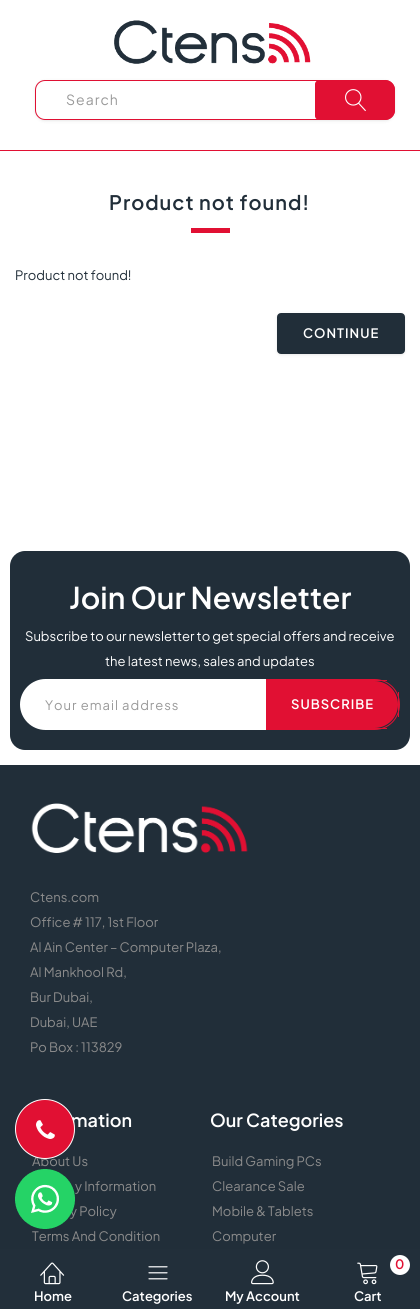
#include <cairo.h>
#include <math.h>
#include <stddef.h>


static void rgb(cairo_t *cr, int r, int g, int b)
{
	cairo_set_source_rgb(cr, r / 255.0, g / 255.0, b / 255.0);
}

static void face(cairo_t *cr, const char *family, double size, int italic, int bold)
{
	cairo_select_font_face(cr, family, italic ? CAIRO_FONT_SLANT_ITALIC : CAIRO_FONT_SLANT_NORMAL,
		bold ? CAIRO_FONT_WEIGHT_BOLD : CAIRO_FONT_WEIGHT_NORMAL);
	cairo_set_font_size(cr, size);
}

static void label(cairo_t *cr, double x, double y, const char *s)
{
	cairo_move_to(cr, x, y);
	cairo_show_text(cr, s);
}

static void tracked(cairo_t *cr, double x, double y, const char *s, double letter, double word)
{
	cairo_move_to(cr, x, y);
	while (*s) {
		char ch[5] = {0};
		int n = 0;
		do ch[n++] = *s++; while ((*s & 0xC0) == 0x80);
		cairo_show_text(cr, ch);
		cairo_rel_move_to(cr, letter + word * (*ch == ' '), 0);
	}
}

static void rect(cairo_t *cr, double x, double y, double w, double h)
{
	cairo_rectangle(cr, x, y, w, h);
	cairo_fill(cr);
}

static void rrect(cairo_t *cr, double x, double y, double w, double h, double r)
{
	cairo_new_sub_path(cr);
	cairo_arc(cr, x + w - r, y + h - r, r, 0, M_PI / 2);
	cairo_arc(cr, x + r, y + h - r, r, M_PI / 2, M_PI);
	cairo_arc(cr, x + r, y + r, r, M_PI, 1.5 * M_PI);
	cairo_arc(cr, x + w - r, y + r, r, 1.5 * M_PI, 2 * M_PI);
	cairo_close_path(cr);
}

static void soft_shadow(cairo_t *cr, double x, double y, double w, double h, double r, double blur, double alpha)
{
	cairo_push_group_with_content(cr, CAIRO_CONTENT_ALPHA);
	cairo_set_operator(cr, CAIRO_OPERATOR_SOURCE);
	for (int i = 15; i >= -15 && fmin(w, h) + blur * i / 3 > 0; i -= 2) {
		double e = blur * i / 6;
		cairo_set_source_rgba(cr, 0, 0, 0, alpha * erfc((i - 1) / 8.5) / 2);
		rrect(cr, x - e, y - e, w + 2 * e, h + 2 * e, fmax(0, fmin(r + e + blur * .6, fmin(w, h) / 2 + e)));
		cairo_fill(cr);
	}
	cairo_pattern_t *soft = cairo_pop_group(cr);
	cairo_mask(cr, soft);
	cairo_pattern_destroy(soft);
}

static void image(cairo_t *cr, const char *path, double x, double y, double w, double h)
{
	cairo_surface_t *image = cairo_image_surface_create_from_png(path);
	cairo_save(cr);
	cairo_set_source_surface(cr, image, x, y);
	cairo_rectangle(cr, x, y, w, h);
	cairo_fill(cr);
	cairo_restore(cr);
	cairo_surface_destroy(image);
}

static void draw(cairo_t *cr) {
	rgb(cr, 255, 255, 255);
	cairo_paint(cr);
	rgb(cr, 225, 16, 51);
	rect(cr, 0, 150, 420, 1);
	image(cr, "image0.png", 114, 20, 197, 44);
	rgb(cr, 0, 0, 0);
	soft_shadow(cr, 35, 81, 360, 40, 10, 1.5, 0.09);
	rgb(cr, 255, 255, 255);
	rrect(cr, 35.5, 80.5, 359, 39, 9.5);
	cairo_fill_preserve(cr);
	rgb(cr, 223, 16, 51);
	cairo_set_line_width(cr, 1);
	cairo_stroke(cr);
	face(cr, "Plus Jakarta Sans", 14, 0, 0);
	rgb(cr, 153, 153, 153);
	tracked(cr, 66, 105, "Search", 1, 0);
	rgb(cr, 225, 16, 51);
	cairo_new_path(cr);
	cairo_move_to(cr, 319, 80);
	cairo_line_to(cr, 385, 80);
	cairo_curve_to(cr, 390.5, 80, 395, 84.5, 395, 90);
	cairo_line_to(cr, 395, 110);
	cairo_curve_to(cr, 395, 115.5, 390.5, 120, 385, 120);
	cairo_line_to(cr, 319, 120);
	cairo_curve_to(cr, 317, 120, 315, 118, 315, 116);
	cairo_line_to(cr, 315, 84);
	cairo_curve_to(cr, 315, 82, 317, 80, 319, 80);
	cairo_close_path(cr);
	cairo_fill(cr);
	image(cr, "image1.png", 345, 89, 21, 23);
	face(cr, "Plus Jakarta Sans SemiBold", 20, 0, 0);
	rgb(cr, 33, 46, 57);
	tracked(cr, 109, 210, "Product not found!", 1, 0);
	rgb(cr, 225, 16, 51);
	rect(cr, 191, 228, 39, 5);
	face(cr, "Plus Jakarta Sans", 13, 0, 0);
	rgb(cr, 33, 46, 57);
	label(cr, 15, 280, "Product not found!");
	rgb(cr, 0, 0, 0);
	soft_shadow(cr, 277, 314, 128, 41, 4, 1.5, 0.09);
	rgb(cr, 33, 46, 57);
	rrect(cr, 278, 314, 126, 39, 3);
	cairo_fill_preserve(cr);
	cairo_set_line_width(cr, 2);
	cairo_stroke(cr);
	face(cr, "Plus Jakarta Sans SemiBold", 13, 0, 0);
	rgb(cr, 255, 255, 255);
	tracked(cr, 303, 338, "CONTINUE", 1, 0);
	rgb(cr, 33, 46, 57);
	rrect(cr, 10, 551, 400, 199, 15);
	cairo_fill(cr);
	face(cr, "Plus Jakarta Sans SemiBold", 30, 0, 0);
	rgb(cr, 255, 255, 255);
	label(cr, 69, 609, "Join Our Newsletter");
	face(cr, "Plus Jakarta Sans", 13, 0, 0);
	label(cr, 25, 641, "Subscribe to our newsletter to get special offers and receive");
	label(cr, 105, 666, "the latest news, sales and updates");
	cairo_new_path(cr);
	cairo_move_to(cr, 45.5, 679);
	cairo_line_to(cr, 266, 679);
	cairo_line_to(cr, 266, 730);
	cairo_line_to(cr, 45.5, 730);
	cairo_curve_to(cr, 31.5, 730, 20, 718.5, 20, 704.5);
	cairo_curve_to(cr, 20, 690.5, 31.5, 679, 45.5, 679);
	cairo_close_path(cr);
	cairo_fill(cr);
	rgb(cr, 153, 153, 153);
	tracked(cr, 45, 710, "Your email address", 1, 0);
	rgb(cr, 225, 16, 51);
	cairo_new_path(cr);
	cairo_move_to(cr, 267, 681);
	cairo_line_to(cr, 374.5, 681);
	cairo_curve_to(cr, 387.5, 681, 398, 691.5, 398, 704.5);
	cairo_curve_to(cr, 398, 717.5, 387.5, 728, 374.5, 728);
	cairo_line_to(cr, 267, 728);
	cairo_close_path(cr);
	cairo_fill(cr);
	cairo_new_path(cr);
	cairo_move_to(cr, 266.5, 679.5);
	cairo_line_to(cr, 374.5, 679.5);
	cairo_curve_to(cr, 388.5, 679.5, 399.5, 690.5, 399.5, 704.5);
	cairo_curve_to(cr, 399.5, 718.5, 388.5, 729.5, 374.5, 729.5);
	cairo_line_to(cr, 266.5, 729.5);
	cairo_close_path(cr);
	cairo_set_line_width(cr, 1);
	cairo_stroke(cr);
	rect(cr, 266, 680, 121, 1);
	rect(cr, 398, 692, 1, 25);
	rect(cr, 266, 728, 121, 1);
	face(cr, "Plus Jakarta Sans SemiBold", 13, 0, 0);
	rgb(cr, 255, 255, 255);
	tracked(cr, 291, 709, "SUBSCRIBE", 1, 0);
	rgb(cr, 33, 46, 57);
	rect(cr, 0, 765, 420, 484);
	image(cr, "image2.png", 31, 803, 217, 50);
	face(cr, "Plus Jakarta Sans", 13, 0, 0);
	rgb(cr, 140, 140, 140);
	label(cr, 30, 902, "Ctens.com");
	label(cr, 30, 927, "Office # 117, 1st Floor");
	label(cr, 30, 952, "Al Ain Center – Computer Plaza,");
	label(cr, 30, 977, "Al Mankhool Rd,");
	label(cr, 30, 1002, "Bur Dubai,");
	label(cr, 30, 1027, "Dubai, UAE");
	label(cr, 30, 1052, "Po Box : 113829");
	face(cr, "Plus Jakarta Sans SemiBold", 18, 0, 0);
	rgb(cr, 255, 255, 255);
	label(cr, 71, 1127, "mation");
	face(cr, "Plus Jakarta Sans", 13, 0, 0);
	rgb(cr, 140, 140, 140);
	label(cr, 32, 1166, "About Us");
	label(cr, 75, 1191, "y Information");
	label(cr, 70, 1216, "y Policy");
	label(cr, 32, 1241, "Terms And Condition");
	face(cr, "Plus Jakarta Sans SemiBold", 18, 0, 0);
	rgb(cr, 255, 255, 255);
	label(cr, 210, 1127, "Our Categories");
	face(cr, "Plus Jakarta Sans", 13, 0, 0);
	rgb(cr, 140, 140, 140);
	label(cr, 212, 1166, "Build Gaming PCs");
	label(cr, 212, 1191, "Clearance Sale");
	label(cr, 212, 1216, "Mobile & Tablets");
	label(cr, 212, 1241, "Computer");
	rgb(cr, 34, 47, 58);
	rect(cr, 0, 1249, 420, 60);
	image(cr, "image3.png", 40, 1262, 25, 23);
	face(cr, "Plus Jakarta Sans SemiBold", 13, 0, 0);
	rgb(cr, 255, 255, 255);
	label(cr, 34, 1301, "Home");
	image(cr, "image4.png", 148, 1266, 20, 14);
	label(cr, 122, 1301, "Categories");
	image(cr, "image5.png", 251, 1260, 23, 25);
	label(cr, 225, 1301, "My Account");
	image(cr, "image6.png", 357, 1262, 21, 23);
	cairo_arc(cr, 400, 1265, 10, 0, 2 * M_PI);
	cairo_fill(cr);
	rgb(cr, 225, 16, 51);
	label(cr, 395, 1269, "0");
	rgb(cr, 255, 255, 255);
	label(cr, 354, 1301, "Cart");
	rgb(cr, 225, 16, 51);
	cairo_new_path(cr);
	cairo_arc(cr, 45, 1129, 29.5, 0, 2 * M_PI);
	cairo_fill_preserve(cr);
	rgb(cr, 255, 255, 255);
	cairo_stroke(cr);
	image(cr, "image7.png", 36, 1120, 19, 19);
	image(cr, "image8.png", 15, 1169, 60, 60);
}

int main(void) {
	cairo_surface_t *surface = cairo_image_surface_create(CAIRO_FORMAT_RGB24, 420, 1309);
	cairo_t *cr = cairo_create(surface);
	cairo_font_options_t *options = cairo_font_options_create();
	cairo_font_options_set_hint_metrics(options, CAIRO_HINT_METRICS_OFF);
	cairo_font_options_set_hint_style(options, CAIRO_HINT_STYLE_NONE);
	cairo_set_font_options(cr, options);
	cairo_set_miter_limit(cr, 4);
	draw(cr);
	cairo_surface_write_to_png(surface, "render.png");
	cairo_font_options_destroy(options);
	cairo_destroy(cr);
	cairo_surface_destroy(surface);
	return 0;
}
